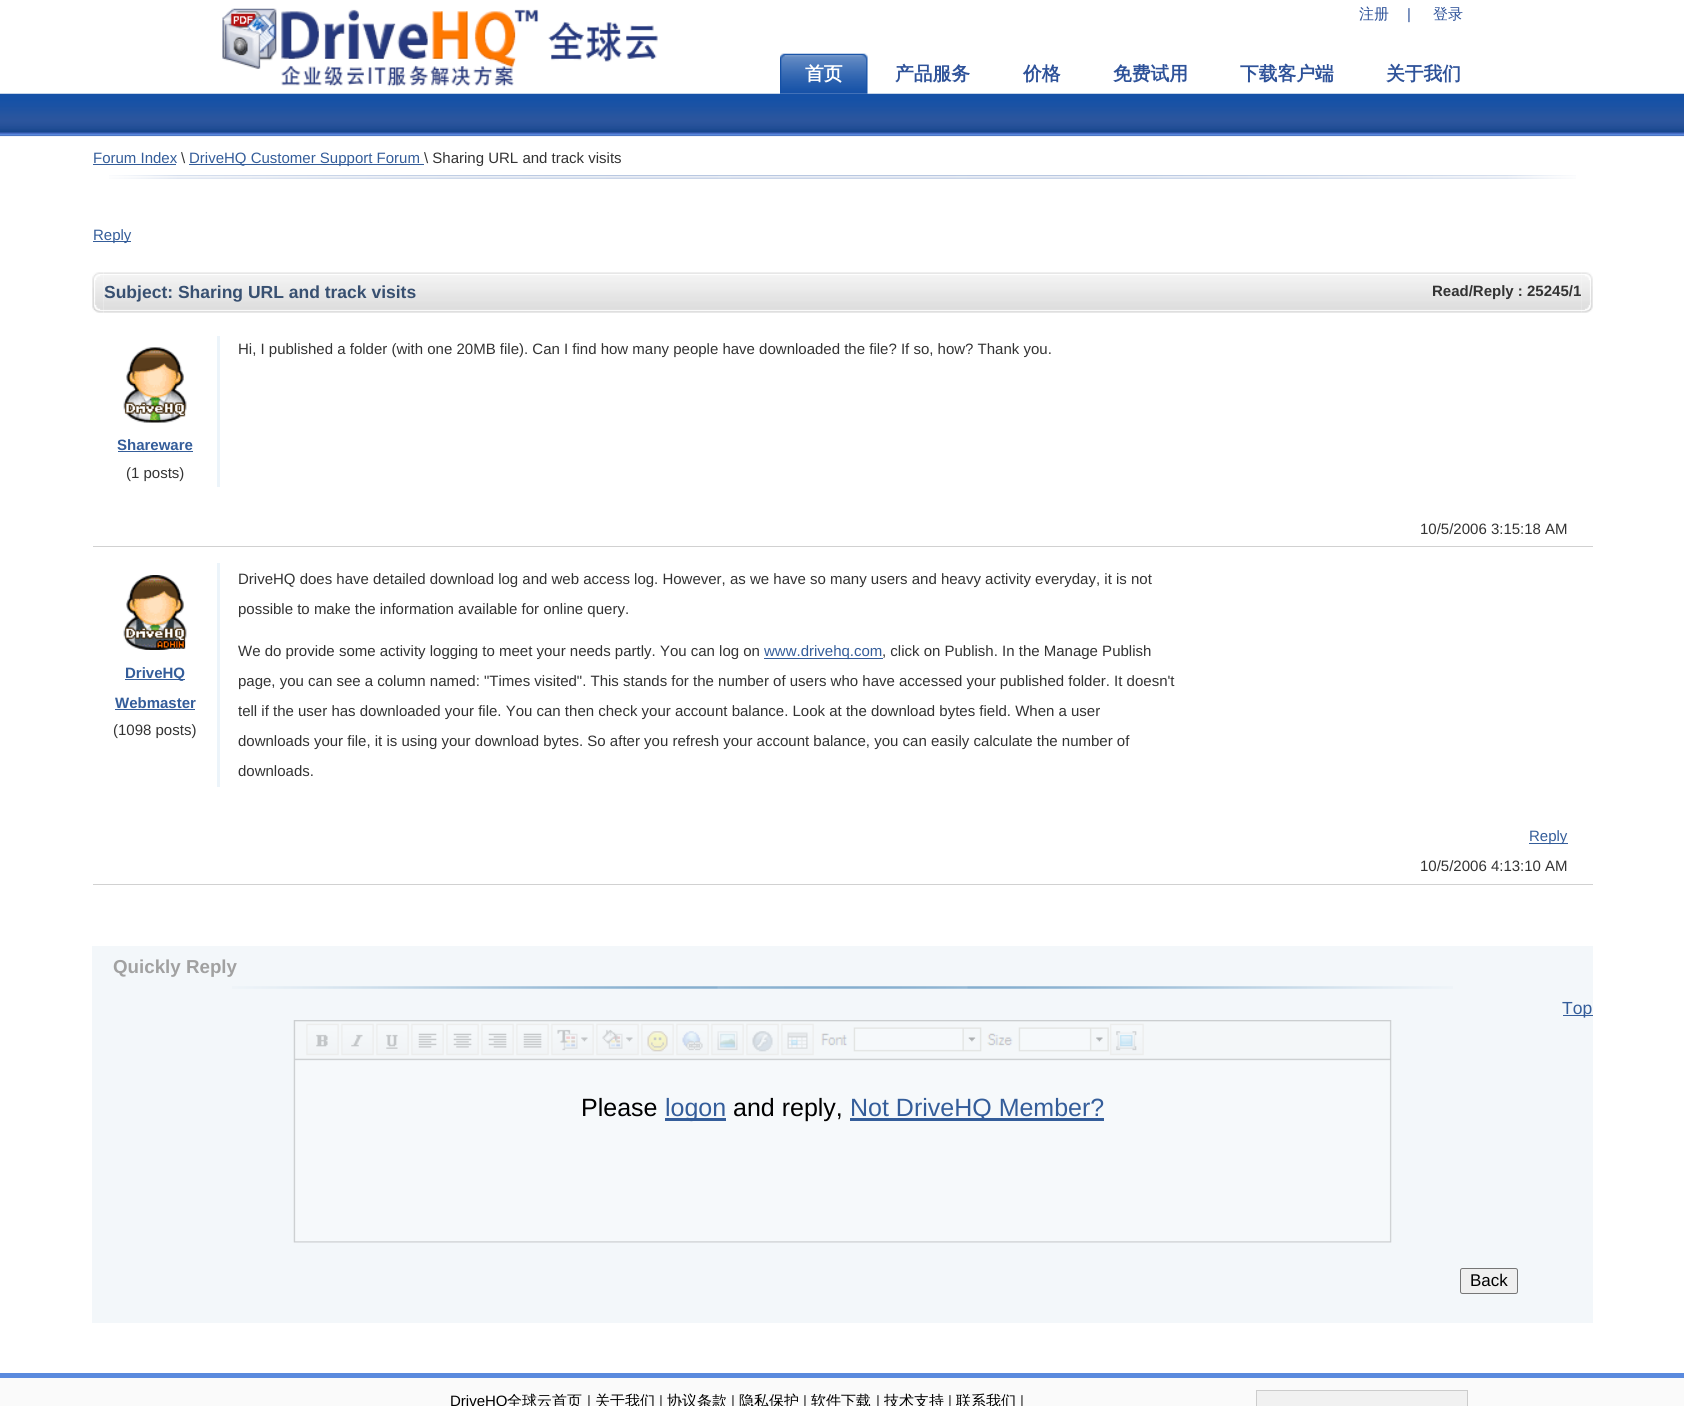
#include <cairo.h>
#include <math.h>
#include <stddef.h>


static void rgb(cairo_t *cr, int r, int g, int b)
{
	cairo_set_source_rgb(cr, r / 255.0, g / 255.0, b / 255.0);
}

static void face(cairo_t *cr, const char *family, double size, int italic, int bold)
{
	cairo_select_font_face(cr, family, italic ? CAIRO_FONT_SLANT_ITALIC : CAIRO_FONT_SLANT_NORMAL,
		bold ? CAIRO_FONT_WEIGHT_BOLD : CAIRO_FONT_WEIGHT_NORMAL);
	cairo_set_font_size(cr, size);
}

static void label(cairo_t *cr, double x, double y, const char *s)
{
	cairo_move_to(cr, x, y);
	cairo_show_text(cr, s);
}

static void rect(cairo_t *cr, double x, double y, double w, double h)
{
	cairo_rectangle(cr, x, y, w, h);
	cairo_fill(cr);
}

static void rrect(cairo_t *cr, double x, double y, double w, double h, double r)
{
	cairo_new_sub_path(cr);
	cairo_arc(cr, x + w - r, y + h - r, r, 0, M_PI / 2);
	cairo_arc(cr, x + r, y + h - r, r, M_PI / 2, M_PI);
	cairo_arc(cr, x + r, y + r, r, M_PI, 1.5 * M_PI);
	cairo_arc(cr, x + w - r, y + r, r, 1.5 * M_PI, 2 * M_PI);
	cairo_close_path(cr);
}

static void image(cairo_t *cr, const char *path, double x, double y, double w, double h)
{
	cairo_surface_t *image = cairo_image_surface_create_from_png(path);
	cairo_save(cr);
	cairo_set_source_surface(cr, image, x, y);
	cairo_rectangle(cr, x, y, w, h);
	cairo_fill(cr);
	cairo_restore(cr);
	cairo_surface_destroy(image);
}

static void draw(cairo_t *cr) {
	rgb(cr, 255, 255, 255);
	cairo_paint(cr);
	image(cr, "image0.png", 0, 93, 1684, 44);
	image(cr, "image1.png", 222, 8, 436, 79);
	face(cr, "WenQuanYi Zen Hei Medium", 15, 0, 0);
	rgb(cr, 46, 82, 153);
	label(cr, 1359, 19, "注册");
	face(cr, "Liberation Sans", 15, 0, 0);
	label(cr, 1407, 19, "|");
	face(cr, "WenQuanYi Zen Hei Medium", 15, 0, 0);
	label(cr, 1433, 19, "登录");
	image(cr, "image2.png", 780, 53, 5, 41);
	image(cr, "image3.png", 785, 53, 83, 41);
	face(cr, "WenQuanYi Zen Hei", 18.75, 0, 1);
	rgb(cr, 255, 255, 255);
	label(cr, 805, 80, "首页");
	rgb(cr, 46, 82, 153);
	label(cr, 895, 80, "产品服务");
	label(cr, 1023, 80, "价格");
	label(cr, 1113, 80, "免费试用");
	label(cr, 1240, 80, "下载客户端");
	label(cr, 1386, 80, "关于我们");
	image(cr, "image4.png", 109, 175, 1467, 4);
	face(cr, "Liberation Sans", 15, 0, 0);
	rgb(cr, 52, 93, 154);
	label(cr, 93, 163, "Forum Index");
	rect(cr, 93, 164, 83, 1);
	rgb(cr, 51, 51, 51);
	label(cr, 181, 163, "\\");
	rgb(cr, 52, 93, 154);
	rect(cr, 189, 164, 235, 1);
	label(cr, 189, 163, "DriveHQ Customer Support Forum");
	rgb(cr, 51, 51, 51);
	label(cr, 424, 163, "\\ Sharing URL and track visits");
	rgb(cr, 52, 93, 154);
	rect(cr, 93, 241, 38, 1);
	label(cr, 93, 240, "Reply");
	image(cr, "image5.png", 92, 272, 12, 41);
	image(cr, "image6.png", 104, 272, 1478, 41);
	face(cr, "Liberation Sans", 17.5, 0, 1);
	rgb(cr, 56, 80, 113);
	label(cr, 104, 298, "Subject: Sharing URL and track visits");
	face(cr, "Liberation Sans", 15, 0, 1);
	rgb(cr, 51, 51, 51);
	label(cr, 1432, 296, "Read/Reply : 25245/1");
	image(cr, "image7.png", 1581, 272, 12, 41);
	rgb(cr, 236, 244, 250);
	rect(cr, 217, 336, 3, 151);
	face(cr, "Liberation Sans", 15, 0, 0);
	rgb(cr, 51, 51, 51);
	label(cr, 238, 354, "Hi, I published a folder (with one 20MB file). Can I find how many people have downloaded the file? If so, how? Thank you.");
	image(cr, "image8.png", 123, 347, 64, 76);
	face(cr, "Liberation Sans", 15, 0, 1);
	rgb(cr, 52, 93, 154);
	label(cr, 117, 450, "Shareware");
	rect(cr, 118, 451, 75, 1);
	face(cr, "Liberation Sans", 15, 0, 0);
	rgb(cr, 51, 51, 51);
	label(cr, 126, 478, "(1 posts)");
	label(cr, 1420, 534, "10/5/2006 3:15:18 AM");
	rgb(cr, 209, 209, 209);
	rect(cr, 93, 546, 1500, 1);
	image(cr, "image9.png", 123, 575, 64, 75);
	rgb(cr, 52, 93, 154);
	rect(cr, 125, 679, 60, 1);
	face(cr, "Liberation Sans", 15, 0, 1);
	label(cr, 125, 678, "DriveHQ");
	label(cr, 115, 708, "Webmaster");
	rect(cr, 115, 709, 80, 1);
	face(cr, "Liberation Sans", 15, 0, 0);
	rgb(cr, 51, 51, 51);
	label(cr, 113, 735, "(1098 posts)");
	rgb(cr, 236, 244, 250);
	rect(cr, 217, 563, 3, 224);
	rgb(cr, 51, 51, 51);
	label(cr, 238, 584, "DriveHQ does have detailed download log and web access log. However, as we have so many users and heavy activity everyday, it is not");
	label(cr, 238, 614, "possible to make the information available for online query.");
	label(cr, 238, 656, "We do provide some activity logging to meet your needs partly. You can log on");
	rgb(cr, 52, 93, 154);
	rect(cr, 764, 658, 119, 1);
	label(cr, 764, 656, "www.drivehq.com");
	rgb(cr, 51, 51, 51);
	label(cr, 882, 656, ", click on Publish. In the Manage Publish");
	label(cr, 238, 686, "page, you can see a column named: \"Times visited\". This stands for the number of users who have accessed your published folder. It doesn't");
	label(cr, 238, 716, "tell if the user has downloaded your file. You can then check your account balance. Look at the download bytes field. When a user");
	label(cr, 238, 746, "downloads your file, it is using your download bytes. So after you refresh your account balance, you can easily calculate the number of");
	label(cr, 238, 776, "downloads.");
	rgb(cr, 52, 93, 154);
	rect(cr, 1529, 843, 39, 1);
	label(cr, 1529, 841, "Reply");
	rgb(cr, 51, 51, 51);
	label(cr, 1420, 871, "10/5/2006 4:13:10 AM");
	rgb(cr, 209, 209, 209);
	rect(cr, 93, 884, 1500, 1);
	rgb(cr, 243, 247, 250);
	rect(cr, 92, 946, 1501, 377);
	image(cr, "image10.png", 232, 986, 1221, 3);
	face(cr, "Liberation Sans", 18.75, 0, 1);
	rgb(cr, 161, 161, 161);
	label(cr, 113, 973, "Quickly Reply");
	rgb(cr, 52, 93, 154);
	rect(cr, 1563, 1015, 30, 1);
	face(cr, "Liberation Sans", 17.5, 0, 0);
	label(cr, 1562, 1014, "Top");
	image(cr, "image11.png", 293, 1020, 1099, 223);
	face(cr, "Liberation Sans", 25, 0, 0);
	rgb(cr, 0, 0, 0);
	label(cr, 581, 1116, "Please");
	rgb(cr, 52, 93, 154);
	rect(cr, 665, 1118, 61, 3);
	label(cr, 665, 1116, "logon");
	rgb(cr, 0, 0, 0);
	label(cr, 733, 1116, "and reply,");
	rgb(cr, 52, 93, 154);
	rect(cr, 850, 1118, 254, 3);
	label(cr, 850, 1116, "Not DriveHQ Member?");
	rgb(cr, 239, 239, 239);
	rrect(cr, 1460.5, 1268.5, 57, 25, 2);
	cairo_fill_preserve(cr);
	rgb(cr, 118, 118, 118);
	cairo_set_line_width(cr, 1);
	cairo_stroke(cr);
	face(cr, "Liberation Sans", 17, 0, 0);
	rgb(cr, 0, 0, 0);
	label(cr, 1470, 1286, "Back");
	rgb(cr, 250, 250, 250);
	rect(cr, 0, 1378, 1684, 28);
	rgb(cr, 90, 138, 222);
	rect(cr, 0, 1373, 1684, 5);
	face(cr, "Liberation Sans", 15, 0, 0);
	rgb(cr, 0, 0, 0);
	label(cr, 450, 1406, "DriveHQ");
	face(cr, "WenQuanYi Zen Hei Medium", 15, 0, 0);
	label(cr, 507, 1406, "全球云首页");
	face(cr, "Liberation Sans", 15, 0, 0);
	rgb(cr, 51, 51, 51);
	label(cr, 587, 1406, "|");
	face(cr, "WenQuanYi Zen Hei Medium", 15, 0, 0);
	rgb(cr, 0, 0, 0);
	label(cr, 595, 1406, "关于我们");
	face(cr, "Liberation Sans", 15, 0, 0);
	rgb(cr, 51, 51, 51);
	label(cr, 659, 1406, "|");
	face(cr, "WenQuanYi Zen Hei Medium", 15, 0, 0);
	rgb(cr, 0, 0, 0);
	label(cr, 667, 1406, "协议条款");
	face(cr, "Liberation Sans", 15, 0, 0);
	rgb(cr, 51, 51, 51);
	label(cr, 731, 1406, "|");
	face(cr, "WenQuanYi Zen Hei Medium", 15, 0, 0);
	rgb(cr, 0, 0, 0);
	label(cr, 739, 1406, "隐私保护");
	face(cr, "Liberation Sans", 15, 0, 0);
	rgb(cr, 51, 51, 51);
	label(cr, 803, 1406, "|");
	face(cr, "WenQuanYi Zen Hei Medium", 15, 0, 0);
	rgb(cr, 0, 0, 0);
	label(cr, 811, 1406, "软件下载");
	face(cr, "Liberation Sans", 15, 0, 0);
	rgb(cr, 51, 51, 51);
	label(cr, 876, 1406, "|");
	face(cr, "WenQuanYi Zen Hei Medium", 15, 0, 0);
	rgb(cr, 0, 0, 0);
	label(cr, 884, 1406, "技术支持");
	face(cr, "Liberation Sans", 15, 0, 0);
	rgb(cr, 51, 51, 51);
	label(cr, 948, 1406, "|");
	face(cr, "WenQuanYi Zen Hei Medium", 15, 0, 0);
	rgb(cr, 0, 0, 0);
	label(cr, 956, 1406, "联系我们");
	face(cr, "Liberation Sans", 15, 0, 0);
	rgb(cr, 51, 51, 51);
	label(cr, 1020, 1406, "|");
	rgb(cr, 241, 241, 241);
	cairo_rectangle(cr, 1256.5, 1390.5, 211, 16);
	cairo_fill_preserve(cr);
	rgb(cr, 204, 204, 204);
	cairo_stroke(cr);
}

int main(void) {
	cairo_surface_t *surface = cairo_image_surface_create(CAIRO_FORMAT_RGB24, 1684, 1406);
	cairo_t *cr = cairo_create(surface);
	cairo_font_options_t *options = cairo_font_options_create();
	cairo_font_options_set_hint_metrics(options, CAIRO_HINT_METRICS_OFF);
	cairo_font_options_set_hint_style(options, CAIRO_HINT_STYLE_NONE);
	cairo_set_font_options(cr, options);
	cairo_set_miter_limit(cr, 4);
	draw(cr);
	cairo_surface_write_to_png(surface, "render.png");
	cairo_font_options_destroy(options);
	cairo_destroy(cr);
	cairo_surface_destroy(surface);
	return 0;
}
